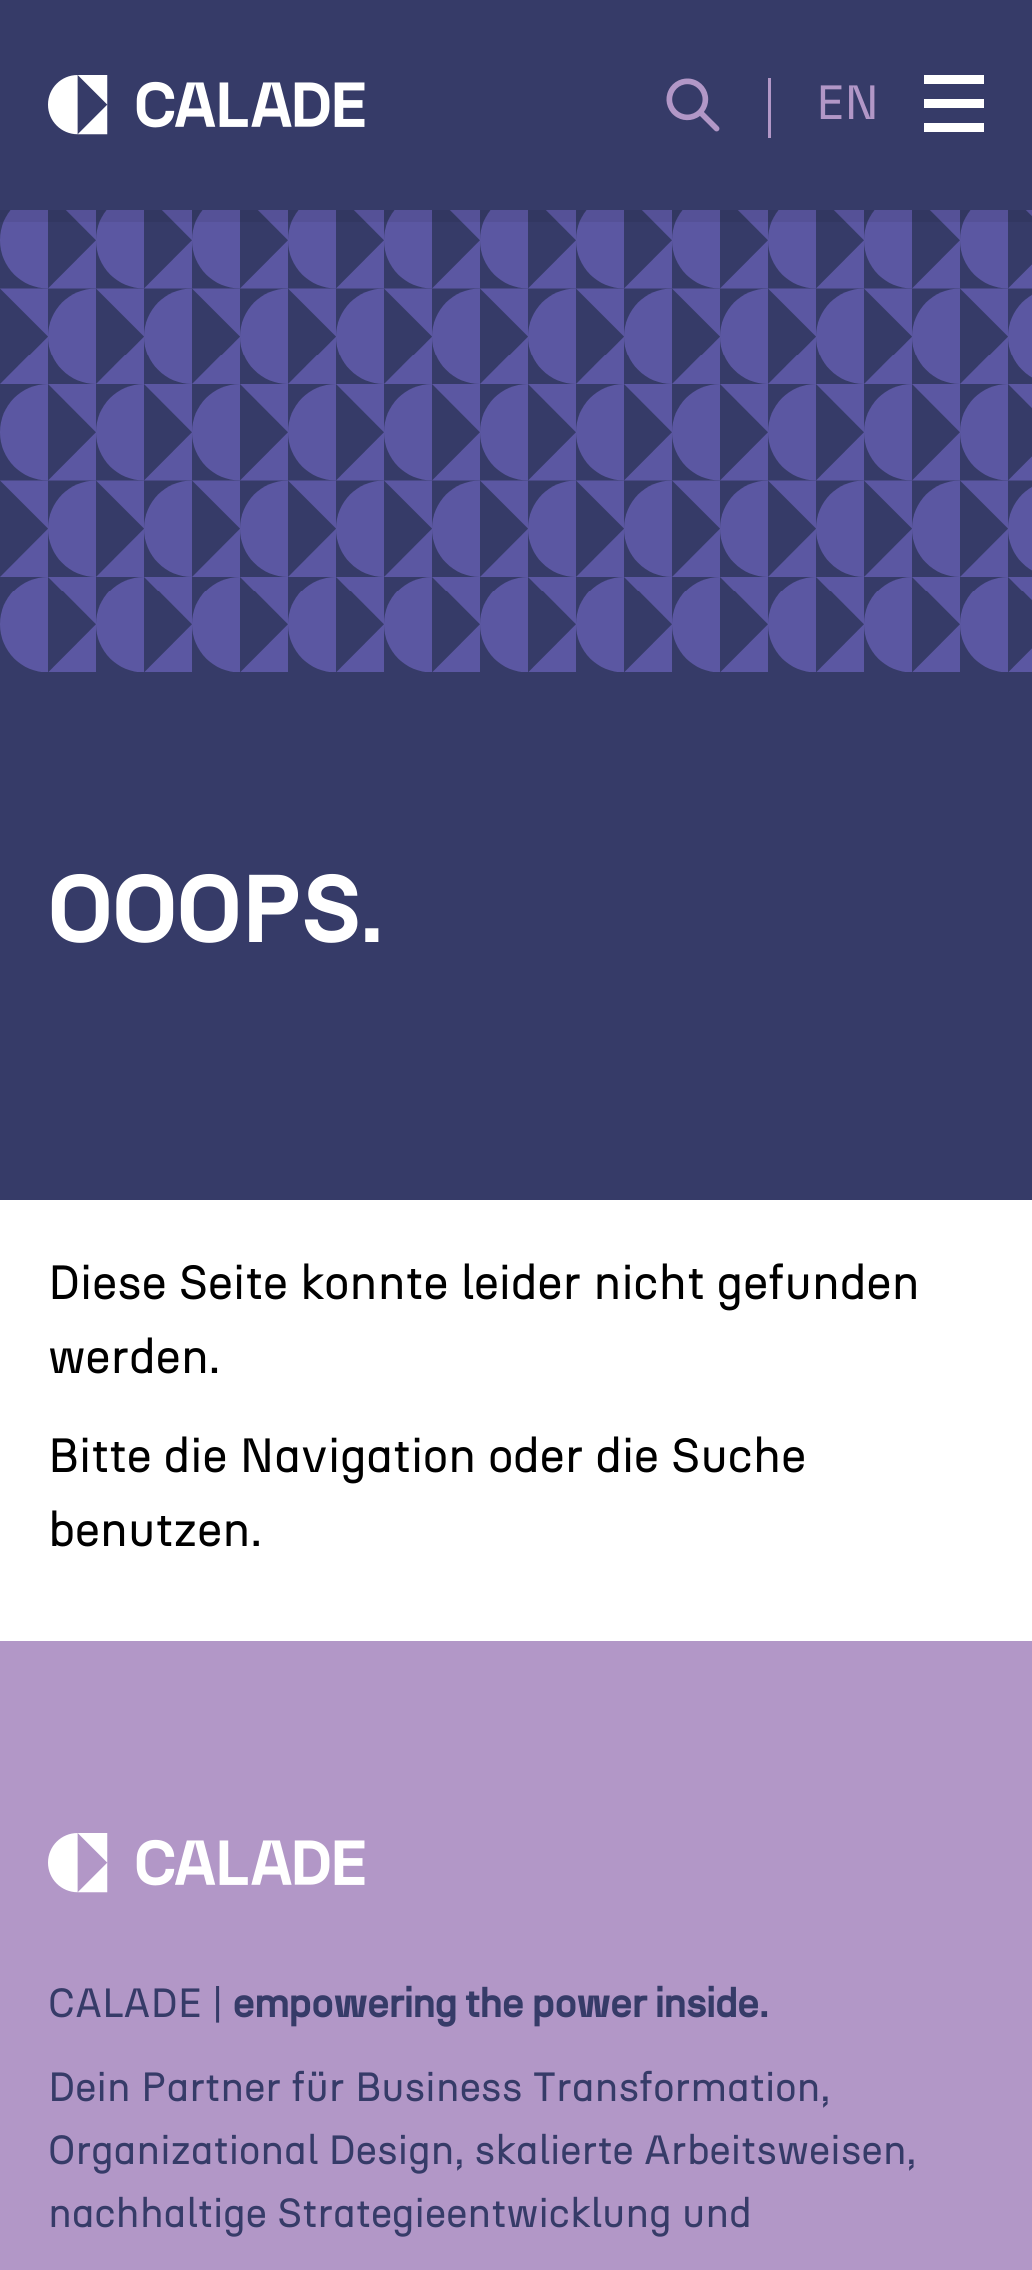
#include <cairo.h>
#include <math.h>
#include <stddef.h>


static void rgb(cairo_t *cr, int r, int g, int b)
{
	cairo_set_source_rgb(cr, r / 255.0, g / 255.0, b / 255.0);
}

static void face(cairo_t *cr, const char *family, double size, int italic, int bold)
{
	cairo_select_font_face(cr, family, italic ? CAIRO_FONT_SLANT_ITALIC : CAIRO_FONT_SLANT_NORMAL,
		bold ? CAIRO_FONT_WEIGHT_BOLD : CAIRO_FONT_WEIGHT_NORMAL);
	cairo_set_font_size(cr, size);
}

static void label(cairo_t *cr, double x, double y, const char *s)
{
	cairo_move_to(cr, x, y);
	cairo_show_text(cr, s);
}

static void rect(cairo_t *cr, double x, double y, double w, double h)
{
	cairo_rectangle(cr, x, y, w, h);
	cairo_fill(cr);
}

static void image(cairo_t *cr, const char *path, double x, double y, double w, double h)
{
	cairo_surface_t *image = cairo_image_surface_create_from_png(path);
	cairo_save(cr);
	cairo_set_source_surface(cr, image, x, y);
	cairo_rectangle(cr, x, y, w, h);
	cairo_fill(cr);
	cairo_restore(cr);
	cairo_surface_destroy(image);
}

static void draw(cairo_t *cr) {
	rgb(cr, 255, 255, 255);
	cairo_paint(cr);
	rgb(cr, 54, 59, 104);
	rect(cr, 0, 0, 1032, 1200);
	image(cr, "image0.png", 0, 210, 1032, 462);
	cairo_set_source_rgba(cr, 0, 0, 0, 0.07);
	rect(cr, 0, 210, 1032, 12);
	image(cr, "image1.png", 48, 75, 317, 60);
	rgb(cr, 178, 151, 199);
	rect(cr, 768, 78, 3, 60);
	image(cr, "image2.png", 666, 78, 54, 54);
	face(cr, "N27", 48, 0, 0);
	label(cr, 816, 119, "EN");
	rgb(cr, 255, 255, 255);
	rect(cr, 924, 123, 60, 9);
	rect(cr, 924, 75, 60, 9);
	rect(cr, 924, 99, 60, 9);
	face(cr, "N27", 96, 0, 1);
	label(cr, 48, 942, "OOOPS.");
	face(cr, "N27", 48, 0, 0);
	rgb(cr, 0, 0, 0);
	label(cr, 48, 1299, "Diese Seite konnte leider nicht gefunden");
	label(cr, 48, 1373, "werden.");
	label(cr, 48, 1472, "Bitte die Navigation oder die Suche");
	label(cr, 48, 1546, "benutzen.");
	rgb(cr, 178, 151, 199);
	rect(cr, 0, 1641, 1032, 629);
	image(cr, "image3.png", 48, 1833, 317, 60);
	face(cr, "N27", 40.8, 0, 0);
	rgb(cr, 54, 59, 104);
	label(cr, 48, 2017, "CALADE |");
	face(cr, "N27", 40.8, 0, 1);
	label(cr, 233, 2017, "empowering the power inside.");
	face(cr, "N27", 40.8, 0, 0);
	label(cr, 48, 2101, "Dein Partner für Business Transformation,");
	label(cr, 48, 2164, "Organizational Design, skalierte Arbeitsweisen,");
	label(cr, 48, 2227, "nachhaltige Strategieentwicklung und");
}

int main(void) {
	cairo_surface_t *surface = cairo_image_surface_create(CAIRO_FORMAT_RGB24, 1032, 2270);
	cairo_t *cr = cairo_create(surface);
	cairo_font_options_t *options = cairo_font_options_create();
	cairo_font_options_set_hint_metrics(options, CAIRO_HINT_METRICS_OFF);
	cairo_font_options_set_hint_style(options, CAIRO_HINT_STYLE_NONE);
	cairo_set_font_options(cr, options);
	cairo_set_miter_limit(cr, 4);
	draw(cr);
	cairo_surface_write_to_png(surface, "render.png");
	cairo_font_options_destroy(options);
	cairo_destroy(cr);
	cairo_surface_destroy(surface);
	return 0;
}
